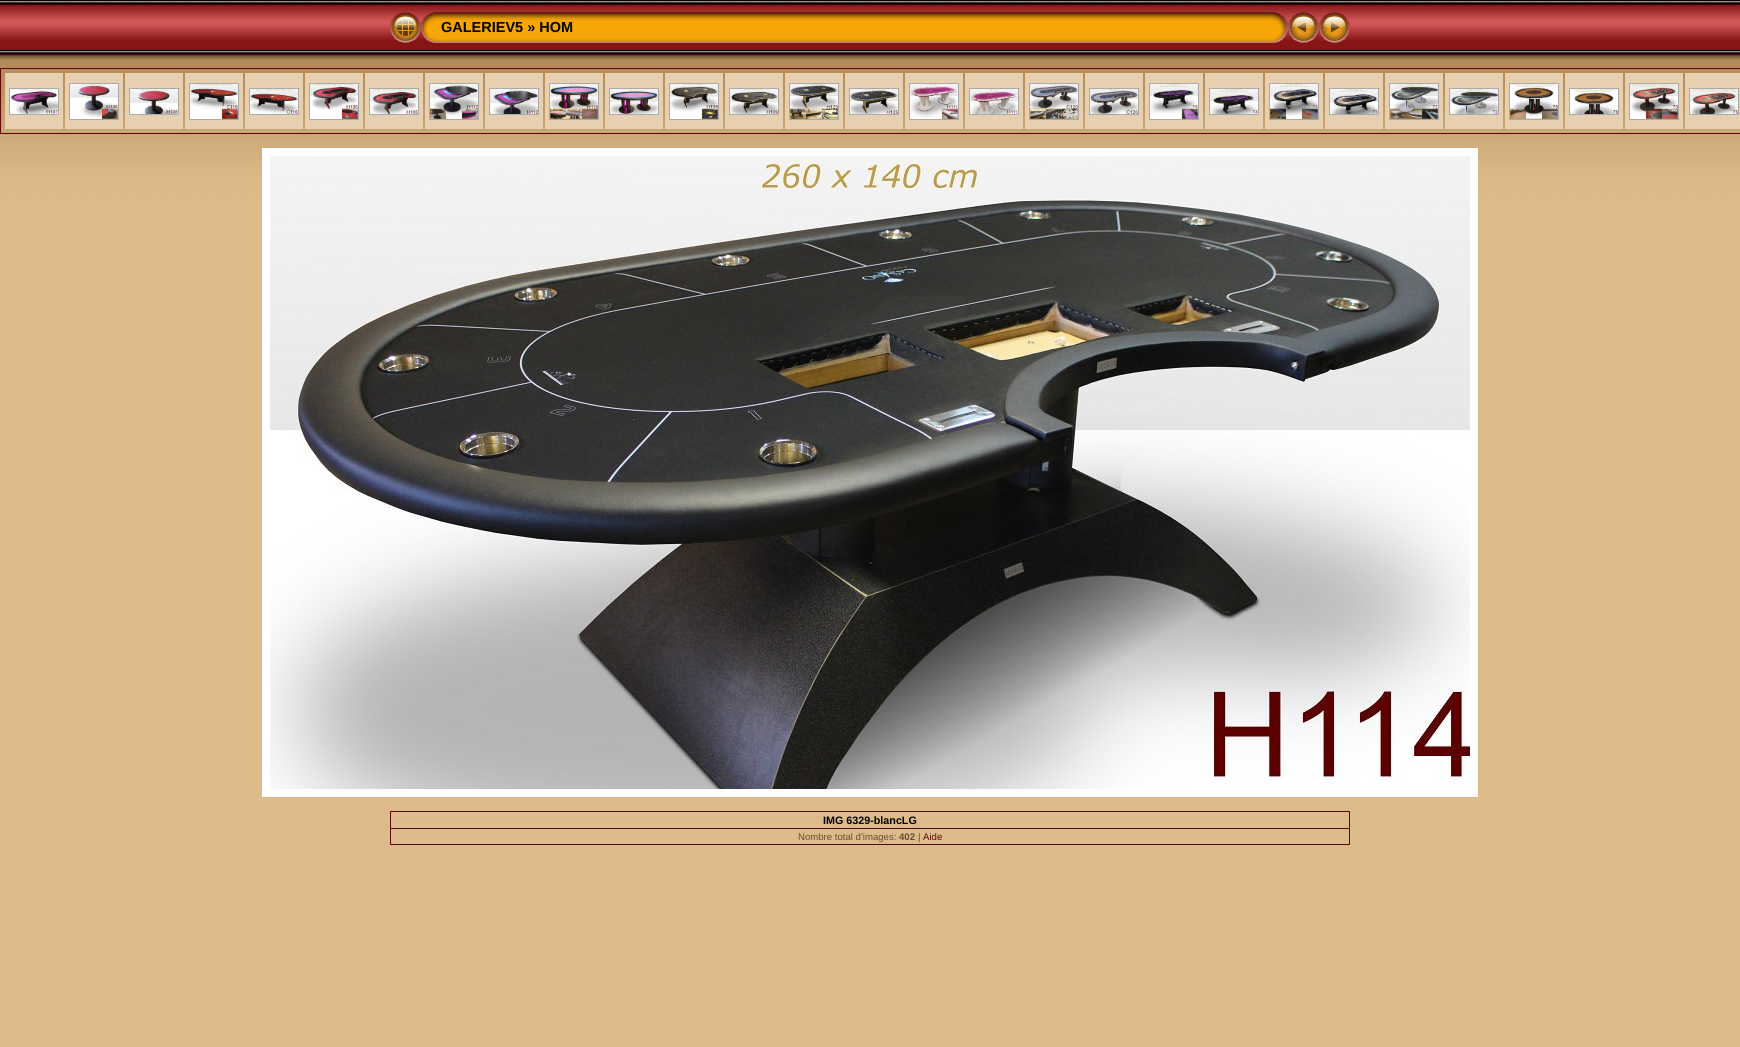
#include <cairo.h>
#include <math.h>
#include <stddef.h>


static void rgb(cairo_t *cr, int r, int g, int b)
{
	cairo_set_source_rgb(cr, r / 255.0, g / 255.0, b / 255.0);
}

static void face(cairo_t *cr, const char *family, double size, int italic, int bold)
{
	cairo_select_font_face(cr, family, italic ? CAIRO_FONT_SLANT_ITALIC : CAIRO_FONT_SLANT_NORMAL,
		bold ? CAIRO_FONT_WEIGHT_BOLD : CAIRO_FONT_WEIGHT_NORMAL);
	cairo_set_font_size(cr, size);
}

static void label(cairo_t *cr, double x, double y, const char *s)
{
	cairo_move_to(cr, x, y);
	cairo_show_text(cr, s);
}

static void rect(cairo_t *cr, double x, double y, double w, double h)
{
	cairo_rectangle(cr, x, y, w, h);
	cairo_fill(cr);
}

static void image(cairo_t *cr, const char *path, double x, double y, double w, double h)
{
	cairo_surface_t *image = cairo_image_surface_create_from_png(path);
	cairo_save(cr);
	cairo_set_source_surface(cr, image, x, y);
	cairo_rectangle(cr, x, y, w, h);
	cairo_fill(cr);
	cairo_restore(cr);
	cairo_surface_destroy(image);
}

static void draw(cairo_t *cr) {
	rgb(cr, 221, 186, 138);
	cairo_paint(cr);
	image(cr, "image0.png", 0, 0, 1740, 200);
	image(cr, "image1.png", 390, 12, 31, 31);
	image(cr, "image2.png", 421, 12, 20, 31);
	image(cr, "image3.png", 441, 12, 827, 31);
	face(cr, "Liberation Sans", 14.5, 0, 1);
	rgb(cr, 0, 0, 0);
	label(cr, 441, 32, "GALERIEV5 » HOM");
	image(cr, "image4.png", 1268, 12, 20, 31);
	image(cr, "image5.png", 1288, 12, 31, 31);
	image(cr, "image6.png", 1319, 12, 31, 31);
	rgb(cr, 97, 5, 5);
	rect(cr, 0, 68, 1740, 1);
	rect(cr, 0, 133, 1740, 1);
	rect(cr, 0, 68, 1, 66);
	rgb(cr, 231, 208, 176);
	rect(cr, 5, 73, 58, 56);
	cairo_rectangle(cr, 9.5, 88.5, 49, 26);
	rgb(cr, 170, 170, 170);
	cairo_set_line_width(cr, 1);
	cairo_stroke(cr);
	image(cr, "image7.png", 10, 89, 48, 25);
	rgb(cr, 231, 208, 176);
	rect(cr, 65, 73, 58, 56);
	cairo_rectangle(cr, 69.5, 83.5, 49, 36);
	rgb(cr, 170, 170, 170);
	cairo_stroke(cr);
	image(cr, "image8.png", 70, 84, 48, 35);
	rgb(cr, 231, 208, 176);
	rect(cr, 125, 73, 58, 56);
	cairo_rectangle(cr, 129.5, 88.5, 49, 26);
	rgb(cr, 170, 170, 170);
	cairo_stroke(cr);
	image(cr, "image9.png", 130, 89, 48, 25);
	rgb(cr, 231, 208, 176);
	rect(cr, 185, 73, 58, 56);
	cairo_rectangle(cr, 189.5, 83.5, 49, 36);
	rgb(cr, 170, 170, 170);
	cairo_stroke(cr);
	image(cr, "image10.png", 190, 84, 48, 35);
	rgb(cr, 231, 208, 176);
	rect(cr, 245, 73, 58, 56);
	cairo_rectangle(cr, 249.5, 88.5, 49, 26);
	rgb(cr, 170, 170, 170);
	cairo_stroke(cr);
	image(cr, "image11.png", 250, 89, 48, 25);
	rgb(cr, 231, 208, 176);
	rect(cr, 305, 73, 58, 56);
	cairo_rectangle(cr, 309.5, 83.5, 49, 36);
	rgb(cr, 170, 170, 170);
	cairo_stroke(cr);
	image(cr, "image12.png", 310, 84, 48, 35);
	rgb(cr, 231, 208, 176);
	rect(cr, 365, 73, 58, 56);
	cairo_rectangle(cr, 369.5, 88.5, 49, 26);
	rgb(cr, 170, 170, 170);
	cairo_stroke(cr);
	image(cr, "image13.png", 370, 89, 48, 25);
	rgb(cr, 231, 208, 176);
	rect(cr, 425, 73, 58, 56);
	cairo_rectangle(cr, 429.5, 83.5, 49, 36);
	rgb(cr, 170, 170, 170);
	cairo_stroke(cr);
	image(cr, "image14.png", 430, 84, 48, 35);
	rgb(cr, 231, 208, 176);
	rect(cr, 485, 73, 58, 56);
	cairo_rectangle(cr, 489.5, 88.5, 49, 26);
	rgb(cr, 170, 170, 170);
	cairo_stroke(cr);
	image(cr, "image15.png", 490, 89, 48, 25);
	rgb(cr, 231, 208, 176);
	rect(cr, 545, 73, 58, 56);
	cairo_rectangle(cr, 549.5, 83.5, 49, 36);
	rgb(cr, 170, 170, 170);
	cairo_stroke(cr);
	image(cr, "image16.png", 550, 84, 48, 35);
	rgb(cr, 231, 208, 176);
	rect(cr, 605, 73, 58, 56);
	cairo_rectangle(cr, 609.5, 88.5, 49, 26);
	rgb(cr, 170, 170, 170);
	cairo_stroke(cr);
	image(cr, "image17.png", 610, 89, 48, 25);
	rgb(cr, 231, 208, 176);
	rect(cr, 665, 73, 58, 56);
	cairo_rectangle(cr, 669.5, 83.5, 49, 36);
	rgb(cr, 170, 170, 170);
	cairo_stroke(cr);
	image(cr, "image18.png", 670, 84, 48, 35);
	rgb(cr, 231, 208, 176);
	rect(cr, 725, 73, 58, 56);
	cairo_rectangle(cr, 729.5, 88.5, 49, 26);
	rgb(cr, 170, 170, 170);
	cairo_stroke(cr);
	image(cr, "image19.png", 730, 89, 48, 25);
	rgb(cr, 231, 208, 176);
	rect(cr, 785, 73, 58, 56);
	cairo_rectangle(cr, 789.5, 83.5, 49, 36);
	rgb(cr, 170, 170, 170);
	cairo_stroke(cr);
	image(cr, "image20.png", 790, 84, 48, 35);
	rgb(cr, 231, 208, 176);
	rect(cr, 845, 73, 58, 56);
	cairo_rectangle(cr, 849.5, 88.5, 49, 26);
	rgb(cr, 170, 170, 170);
	cairo_stroke(cr);
	image(cr, "image21.png", 850, 89, 48, 25);
	rgb(cr, 231, 208, 176);
	rect(cr, 905, 73, 58, 56);
	cairo_rectangle(cr, 909.5, 83.5, 49, 36);
	rgb(cr, 170, 170, 170);
	cairo_stroke(cr);
	image(cr, "image22.png", 910, 84, 48, 35);
	rgb(cr, 231, 208, 176);
	rect(cr, 965, 73, 58, 56);
	cairo_rectangle(cr, 969.5, 88.5, 49, 26);
	rgb(cr, 170, 170, 170);
	cairo_stroke(cr);
	image(cr, "image23.png", 970, 89, 48, 25);
	rgb(cr, 231, 208, 176);
	rect(cr, 1025, 73, 58, 56);
	cairo_rectangle(cr, 1029.5, 83.5, 49, 36);
	rgb(cr, 170, 170, 170);
	cairo_stroke(cr);
	image(cr, "image24.png", 1030, 84, 48, 35);
	rgb(cr, 231, 208, 176);
	rect(cr, 1085, 73, 58, 56);
	cairo_rectangle(cr, 1089.5, 88.5, 49, 26);
	rgb(cr, 170, 170, 170);
	cairo_stroke(cr);
	image(cr, "image25.png", 1090, 89, 48, 25);
	rgb(cr, 231, 208, 176);
	rect(cr, 1145, 73, 58, 56);
	cairo_rectangle(cr, 1149.5, 83.5, 49, 36);
	rgb(cr, 170, 170, 170);
	cairo_stroke(cr);
	image(cr, "image26.png", 1150, 84, 48, 35);
	rgb(cr, 231, 208, 176);
	rect(cr, 1205, 73, 58, 56);
	cairo_rectangle(cr, 1209.5, 88.5, 49, 26);
	rgb(cr, 170, 170, 170);
	cairo_stroke(cr);
	image(cr, "image27.png", 1210, 89, 48, 25);
	rgb(cr, 231, 208, 176);
	rect(cr, 1265, 73, 58, 56);
	cairo_rectangle(cr, 1269.5, 83.5, 49, 36);
	rgb(cr, 170, 170, 170);
	cairo_stroke(cr);
	image(cr, "image28.png", 1270, 84, 48, 35);
	rgb(cr, 231, 208, 176);
	rect(cr, 1325, 73, 58, 56);
	cairo_rectangle(cr, 1329.5, 88.5, 49, 26);
	rgb(cr, 170, 170, 170);
	cairo_stroke(cr);
	image(cr, "image29.png", 1330, 89, 48, 25);
	rgb(cr, 231, 208, 176);
	rect(cr, 1385, 73, 58, 56);
	cairo_rectangle(cr, 1389.5, 83.5, 49, 36);
	rgb(cr, 170, 170, 170);
	cairo_stroke(cr);
	image(cr, "image30.png", 1390, 84, 48, 35);
	rgb(cr, 231, 208, 176);
	rect(cr, 1445, 73, 58, 56);
	cairo_rectangle(cr, 1449.5, 88.5, 49, 26);
	rgb(cr, 170, 170, 170);
	cairo_stroke(cr);
	image(cr, "image31.png", 1450, 89, 48, 25);
	rgb(cr, 231, 208, 176);
	rect(cr, 1505, 73, 58, 56);
	cairo_rectangle(cr, 1509.5, 83.5, 49, 36);
	rgb(cr, 170, 170, 170);
	cairo_stroke(cr);
	image(cr, "image32.png", 1510, 84, 48, 35);
	rgb(cr, 231, 208, 176);
	rect(cr, 1565, 73, 58, 56);
	cairo_rectangle(cr, 1569.5, 88.5, 49, 26);
	rgb(cr, 170, 170, 170);
	cairo_stroke(cr);
	image(cr, "image33.png", 1570, 89, 48, 25);
	rgb(cr, 231, 208, 176);
	rect(cr, 1625, 73, 58, 56);
	cairo_rectangle(cr, 1629.5, 83.5, 49, 36);
	rgb(cr, 170, 170, 170);
	cairo_stroke(cr);
	image(cr, "image34.png", 1630, 84, 48, 35);
	rgb(cr, 231, 208, 176);
	rect(cr, 1685, 73, 55, 56);
	cairo_rectangle(cr, 1689.5, 88.5, 49, 26);
	rgb(cr, 170, 170, 170);
	cairo_stroke(cr);
	image(cr, "image35.png", 1690, 89, 48, 25);
	cairo_rectangle(cr, 266, 152, 1208, 641);
	rgb(cr, 255, 255, 255);
	cairo_set_line_width(cr, 8);
	cairo_stroke(cr);
	image(cr, "image36.png", 270, 156, 1200, 633);
	rgb(cr, 97, 5, 5);
	rect(cr, 390, 811, 960, 1);
	rect(cr, 1349, 811, 1, 34);
	rect(cr, 390, 844, 960, 1);
	rect(cr, 390, 811, 1, 34);
	face(cr, "Liberation Sans", 10.75, 0, 1);
	rgb(cr, 0, 0, 0);
	label(cr, 823, 824, "IMG 6329-blancLG");
	rgb(cr, 97, 5, 5);
	rect(cr, 390, 828, 960, 1);
	face(cr, "Liberation Sans", 9.6, 0, 0);
	rgb(cr, 100, 78, 51);
	label(cr, 798, 840, "Nombre total d'images:");
	face(cr, "Liberation Sans", 9.6, 0, 1);
	label(cr, 899, 840, "402");
	face(cr, "Liberation Sans", 9.6, 0, 0);
	label(cr, 918, 840, "|");
	rgb(cr, 97, 5, 5);
	label(cr, 923, 840, "Aide");
}

int main(void) {
	cairo_surface_t *surface = cairo_image_surface_create(CAIRO_FORMAT_RGB24, 1740, 1047);
	cairo_t *cr = cairo_create(surface);
	cairo_font_options_t *options = cairo_font_options_create();
	cairo_font_options_set_hint_metrics(options, CAIRO_HINT_METRICS_OFF);
	cairo_font_options_set_hint_style(options, CAIRO_HINT_STYLE_NONE);
	cairo_set_font_options(cr, options);
	cairo_set_miter_limit(cr, 4);
	draw(cr);
	cairo_surface_write_to_png(surface, "render.png");
	cairo_font_options_destroy(options);
	cairo_destroy(cr);
	cairo_surface_destroy(surface);
	return 0;
}
